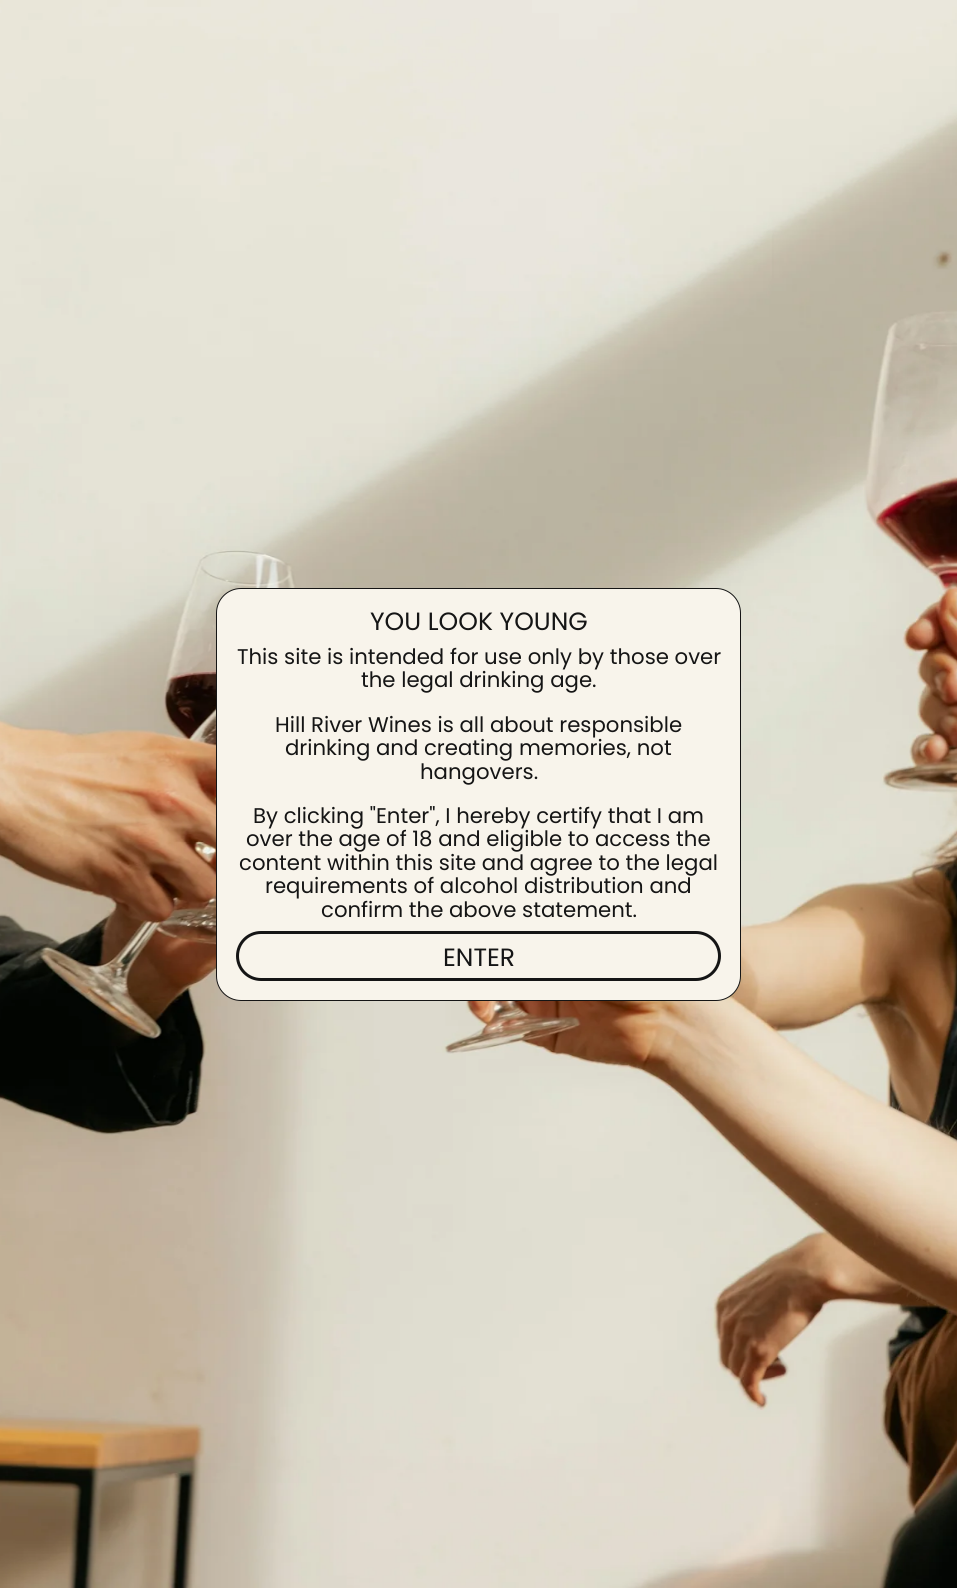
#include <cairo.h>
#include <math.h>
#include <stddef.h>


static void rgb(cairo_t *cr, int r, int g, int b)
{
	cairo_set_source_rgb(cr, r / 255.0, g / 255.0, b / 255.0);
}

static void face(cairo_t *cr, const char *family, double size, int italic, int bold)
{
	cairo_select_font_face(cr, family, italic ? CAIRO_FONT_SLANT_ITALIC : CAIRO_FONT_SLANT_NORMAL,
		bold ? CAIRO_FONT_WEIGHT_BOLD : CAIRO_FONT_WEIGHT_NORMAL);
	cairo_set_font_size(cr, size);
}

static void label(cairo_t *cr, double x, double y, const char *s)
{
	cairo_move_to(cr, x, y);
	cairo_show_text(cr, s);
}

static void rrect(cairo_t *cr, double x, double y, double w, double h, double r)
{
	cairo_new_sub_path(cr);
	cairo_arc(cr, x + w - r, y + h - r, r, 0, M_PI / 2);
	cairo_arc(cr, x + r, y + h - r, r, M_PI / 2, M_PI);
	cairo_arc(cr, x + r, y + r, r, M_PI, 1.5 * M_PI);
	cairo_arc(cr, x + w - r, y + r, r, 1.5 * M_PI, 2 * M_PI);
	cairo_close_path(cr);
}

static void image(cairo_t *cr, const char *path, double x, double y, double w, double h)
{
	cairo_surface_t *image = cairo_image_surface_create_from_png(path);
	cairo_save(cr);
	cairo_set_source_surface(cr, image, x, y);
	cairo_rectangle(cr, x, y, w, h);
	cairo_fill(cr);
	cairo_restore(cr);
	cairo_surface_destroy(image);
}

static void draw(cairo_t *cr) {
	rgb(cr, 255, 255, 255);
	cairo_paint(cr);
	image(cr, "image0.png", 0, 0, 957, 1588);
	rgb(cr, 248, 244, 235);
	rrect(cr, 216.5, 588.5, 524, 412, 24.5);
	cairo_fill_preserve(cr);
	rgb(cr, 21, 21, 21);
	cairo_set_line_width(cr, 1);
	cairo_stroke(cr);
	face(cr, "Poppins", 25, 0, 0);
	label(cr, 370, 630, "YOU LOOK YOUNG");
	face(cr, "Poppins", 21.25, 0, 0);
	label(cr, 237, 664, "This site is intended for use only by those over");
	label(cr, 361, 687, "the legal drinking age.");
	label(cr, 275, 732, "Hill River Wines is all about responsible");
	label(cr, 285, 755, "drinking and creating memories, not");
	label(cr, 420, 779, "hangovers.");
	label(cr, 253, 823, "By clicking \"Enter\", I hereby certify that I am");
	label(cr, 246, 846, "over the age of 18 and eligible to access the");
	label(cr, 239, 870, "content within this site and agree to the legal");
	label(cr, 265, 893, "requirements of alcohol distribution and");
	label(cr, 321, 917, "confirm the above statement.");
	rrect(cr, 237.5, 932.5, 482, 47, 23.5);
	cairo_set_line_width(cr, 3);
	cairo_stroke(cr);
	face(cr, "Poppins", 25, 0, 0);
	label(cr, 443, 966, "ENTER");
}

int main(void) {
	cairo_surface_t *surface = cairo_image_surface_create(CAIRO_FORMAT_RGB24, 957, 1588);
	cairo_t *cr = cairo_create(surface);
	cairo_font_options_t *options = cairo_font_options_create();
	cairo_font_options_set_hint_metrics(options, CAIRO_HINT_METRICS_OFF);
	cairo_font_options_set_hint_style(options, CAIRO_HINT_STYLE_NONE);
	cairo_set_font_options(cr, options);
	cairo_set_miter_limit(cr, 4);
	draw(cr);
	cairo_surface_write_to_png(surface, "render.png");
	cairo_font_options_destroy(options);
	cairo_destroy(cr);
	cairo_surface_destroy(surface);
	return 0;
}
